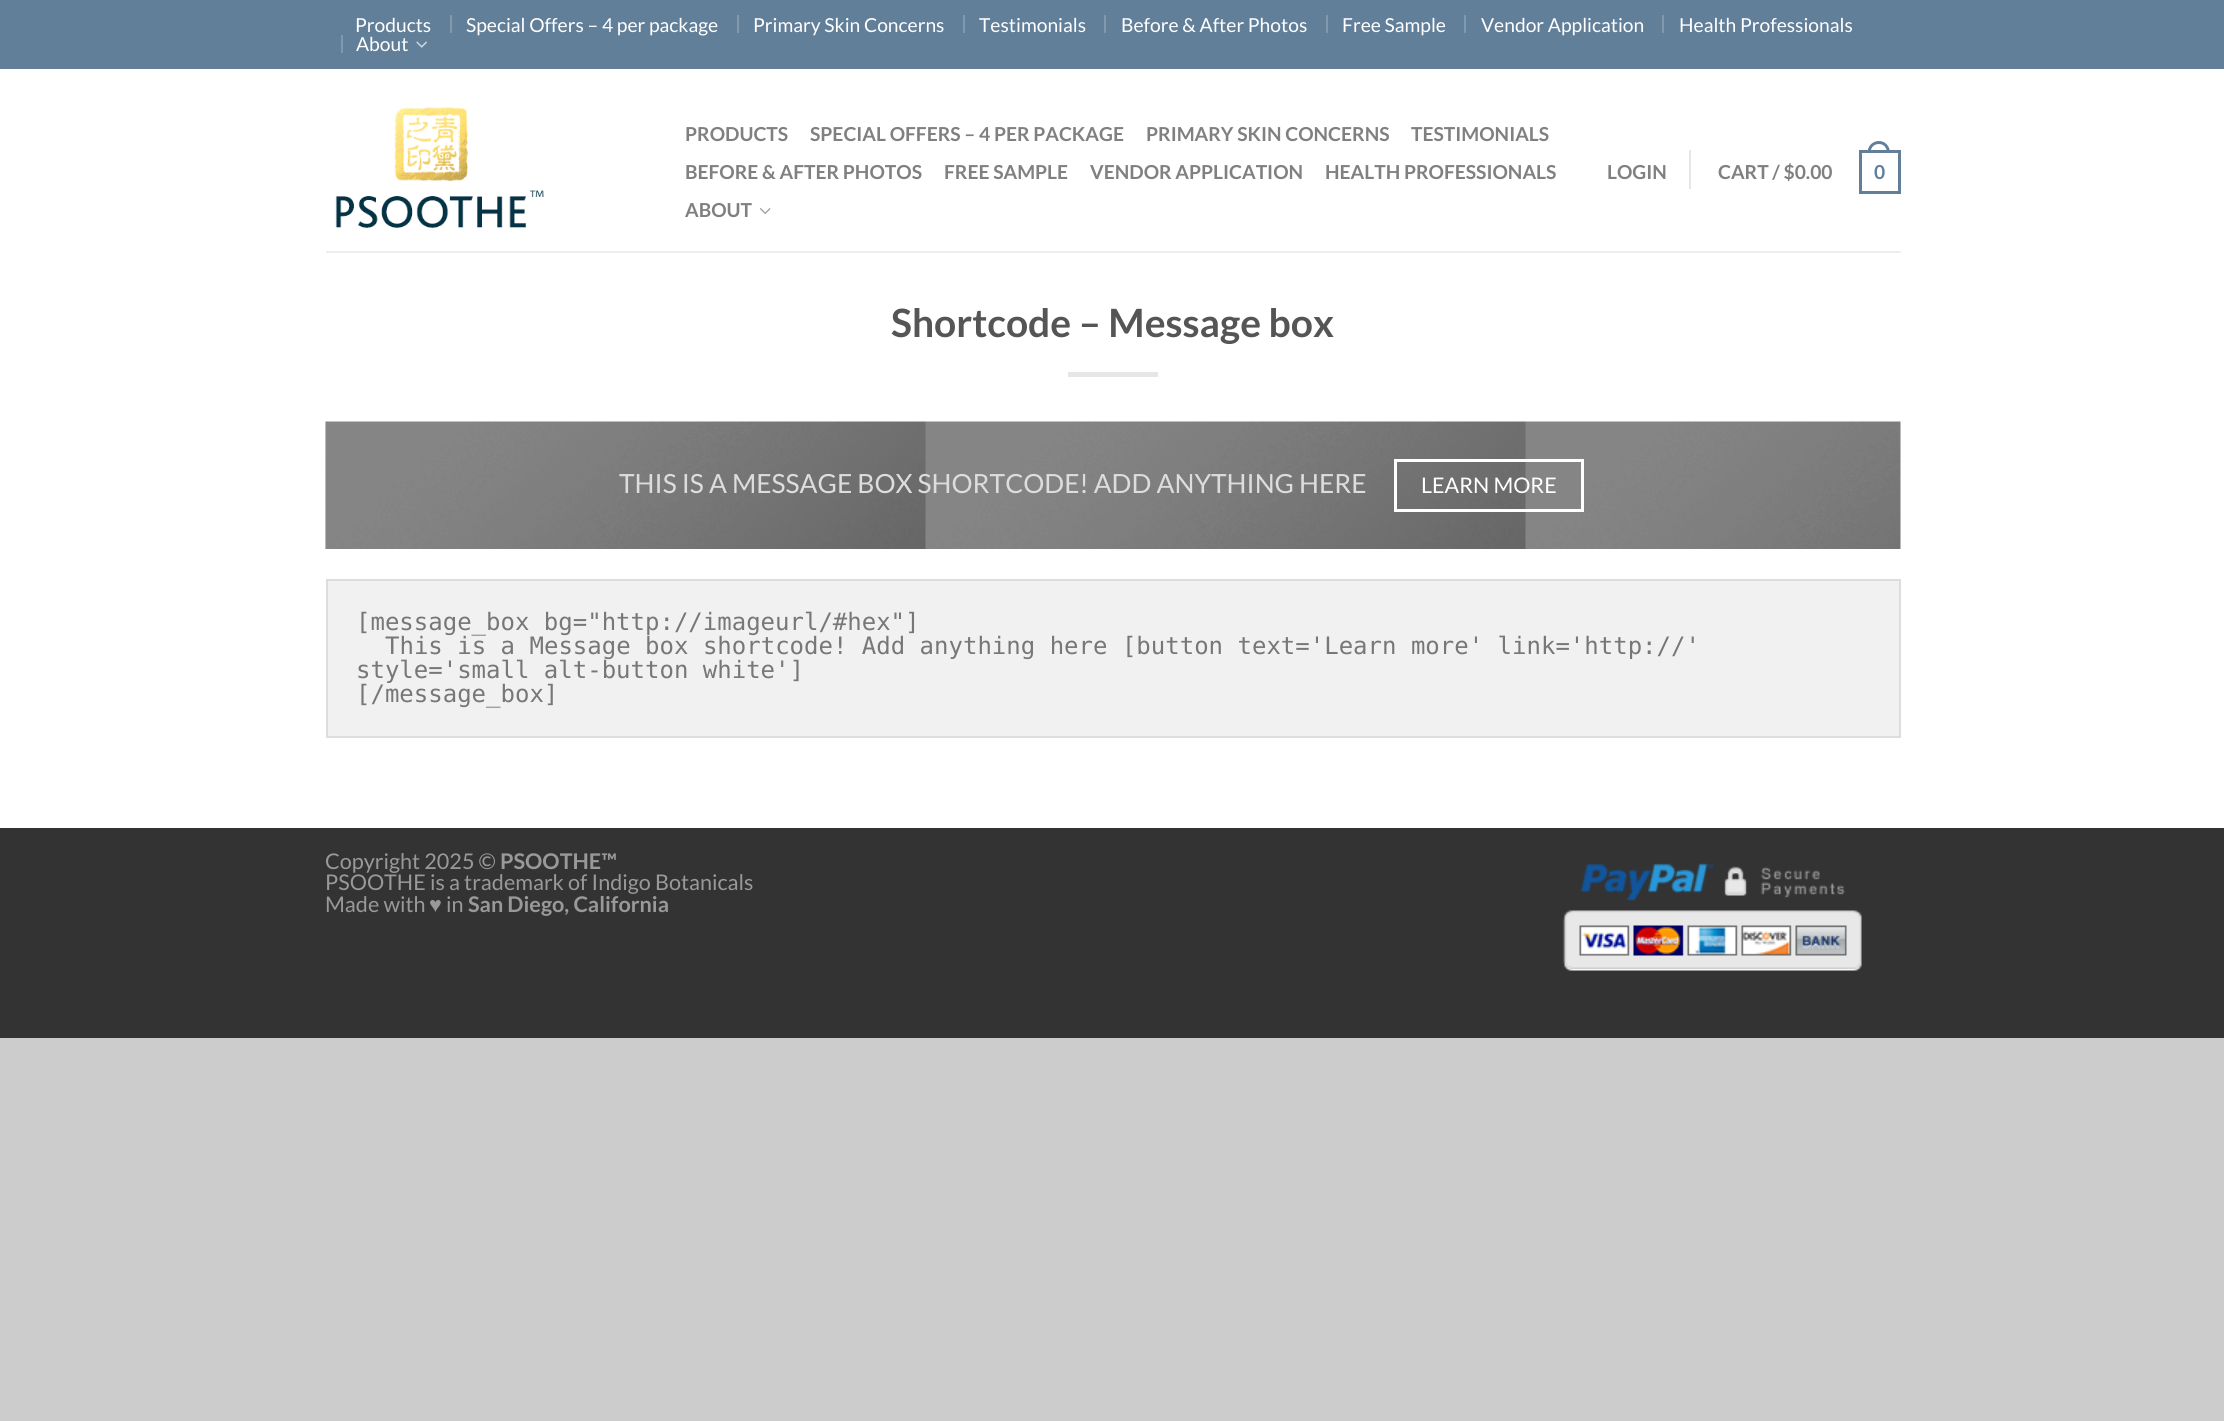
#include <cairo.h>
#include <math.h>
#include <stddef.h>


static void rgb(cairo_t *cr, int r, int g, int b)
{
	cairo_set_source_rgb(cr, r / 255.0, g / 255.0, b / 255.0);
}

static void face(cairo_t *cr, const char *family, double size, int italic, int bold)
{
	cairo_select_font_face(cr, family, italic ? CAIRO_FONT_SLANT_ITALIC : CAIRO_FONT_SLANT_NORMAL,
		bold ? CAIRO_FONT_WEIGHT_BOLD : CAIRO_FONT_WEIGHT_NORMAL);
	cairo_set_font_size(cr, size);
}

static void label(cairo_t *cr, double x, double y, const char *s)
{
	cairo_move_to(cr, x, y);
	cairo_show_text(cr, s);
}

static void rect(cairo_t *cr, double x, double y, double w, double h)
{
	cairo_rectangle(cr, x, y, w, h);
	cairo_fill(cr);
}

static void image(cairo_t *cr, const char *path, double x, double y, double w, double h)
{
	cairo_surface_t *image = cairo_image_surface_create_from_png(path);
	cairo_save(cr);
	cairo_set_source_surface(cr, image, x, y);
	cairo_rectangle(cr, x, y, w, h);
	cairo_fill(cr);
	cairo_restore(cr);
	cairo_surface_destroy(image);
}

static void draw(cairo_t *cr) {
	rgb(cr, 204, 204, 204);
	cairo_paint(cr);
	rgb(cr, 255, 255, 255);
	rect(cr, 0, 69, 2224, 759);
	rgb(cr, 98, 127, 154);
	rect(cr, 0, 0, 2224, 69);
	face(cr, "Lato", 19.25, 0, 0);
	rgb(cr, 255, 255, 255);
	label(cr, 355, 32, "Products");
	rgb(cr, 129, 153, 174);
	rect(cr, 450, 15, 2, 18);
	rgb(cr, 255, 255, 255);
	label(cr, 466, 32, "Special Offers – 4 per package");
	rgb(cr, 129, 153, 174);
	rect(cr, 737, 15, 2, 18);
	rgb(cr, 255, 255, 255);
	label(cr, 753, 32, "Primary Skin Concerns");
	rgb(cr, 129, 153, 174);
	rect(cr, 963, 15, 2, 18);
	rgb(cr, 255, 255, 255);
	label(cr, 979, 32, "Testimonials");
	rgb(cr, 129, 153, 174);
	rect(cr, 1104, 15, 2, 18);
	rgb(cr, 255, 255, 255);
	label(cr, 1121, 32, "Before & After Photos");
	rgb(cr, 129, 153, 174);
	rect(cr, 1326, 15, 2, 18);
	rgb(cr, 255, 255, 255);
	label(cr, 1342, 32, "Free Sample");
	rgb(cr, 129, 153, 174);
	rect(cr, 1464, 15, 2, 18);
	rgb(cr, 255, 255, 255);
	label(cr, 1481, 32, "Vendor Application");
	rgb(cr, 129, 153, 174);
	rect(cr, 1662, 15, 2, 18);
	rgb(cr, 255, 255, 255);
	label(cr, 1679, 32, "Health Professionals");
	rgb(cr, 129, 153, 174);
	rect(cr, 341, 35, 2, 18);
	rgb(cr, 255, 255, 255);
	label(cr, 356, 51, "About");
	image(cr, "image0.png", 416, 41, 11, 7);
	image(cr, "image1.png", 335, 107, 209, 121);
	face(cr, "Lato", 19.25, 0, 1);
	rgb(cr, 128, 128, 128);
	label(cr, 685, 141, "PRODUCTS");
	label(cr, 810, 141, "SPECIAL OFFERS – 4 PER PACKAGE");
	label(cr, 1146, 141, "PRIMARY SKIN CONCERNS");
	label(cr, 1411, 141, "TESTIMONIALS");
	label(cr, 685, 179, "BEFORE & AFTER PHOTOS");
	label(cr, 944, 179, "FREE SAMPLE");
	label(cr, 1090, 179, "VENDOR APPLICATION");
	label(cr, 1325, 179, "HEALTH PROFESSIONALS");
	label(cr, 685, 217, "ABOUT");
	image(cr, "image2.png", 760, 208, 11, 7);
	rgb(cr, 230, 230, 230);
	rect(cr, 1689, 150, 2, 39);
	rgb(cr, 128, 128, 128);
	label(cr, 1607, 179, "LOGIN");
	label(cr, 1718, 179, "CART / $0.00");
	rgb(cr, 98, 127, 154);
	cairo_set_fill_rule(cr, CAIRO_FILL_RULE_EVEN_ODD);
	cairo_new_path(cr);
	cairo_move_to(cr, 1879, 141);
	cairo_curve_to(cr, 1885.5, 141, 1890, 146.5, 1890, 153);
	cairo_line_to(cr, 1867.5, 153);
	cairo_curve_to(cr, 1867.5, 146.5, 1872, 141, 1879, 141);
	cairo_close_path(cr);
	cairo_move_to(cr, 1879, 144);
	cairo_curve_to(cr, 1884, 144, 1887, 148, 1887, 153);
	cairo_line_to(cr, 1870.5, 153);
	cairo_curve_to(cr, 1870.5, 148, 1873.5, 144, 1879, 144);
	cairo_close_path(cr);
	cairo_fill(cr);
	cairo_rectangle(cr, 1860.5, 151.5, 39, 41);
	cairo_set_line_width(cr, 3);
	cairo_stroke(cr);
	label(cr, 1874, 179, "0");
	rgb(cr, 238, 238, 238);
	rect(cr, 326, 251, 1575, 2);
	face(cr, "Lato", 39, 0, 1);
	rgb(cr, 85, 85, 85);
	label(cr, 891, 337, "Shortcode – Message box");
	rgb(cr, 230, 230, 230);
	rect(cr, 1068, 372, 90, 5);
	image(cr, "image3.png", 325, 421, 1576, 128);
	face(cr, "Lato", 26.4, 0, 0);
	rgb(cr, 221, 221, 221);
	label(cr, 619, 493, "THIS IS A MESSAGE BOX SHORTCODE! ADD ANYTHING HERE");
	cairo_rectangle(cr, 1395.5, 460.5, 187, 50);
	rgb(cr, 255, 255, 255);
	cairo_stroke(cr);
	face(cr, "Lato", 21.5, 0, 0);
	label(cr, 1421, 493, "LEARN MORE");
	rgb(cr, 241, 241, 241);
	cairo_rectangle(cr, 327, 580, 1573, 157);
	cairo_fill_preserve(cr);
	rgb(cr, 221, 221, 221);
	cairo_set_line_width(cr, 2);
	cairo_stroke(cr);
	face(cr, "DejaVu Sans Mono", 24, 0, 0);
	rgb(cr, 119, 119, 119);
	label(cr, 356, 630, "[message_box bg=\"http://imageurl/#hex\"]");
	label(cr, 385, 654, "This is a Message box shortcode! Add anything here [button text='Learn more' link='http://'");
	label(cr, 356, 678, "style='small alt-button white']");
	label(cr, 356, 702, "[/message_box]");
	rgb(cr, 51, 51, 51);
	rect(cr, 0, 828, 2224, 210);
	face(cr, "Lato", 21.6, 0, 0);
	rgb(cr, 153, 153, 153);
	label(cr, 325, 869, "Copyright 2025 ©");
	face(cr, "Lato", 21.6, 0, 1);
	label(cr, 500, 869, "PSOOTHE™");
	face(cr, "Lato", 21.6, 0, 0);
	label(cr, 325, 890, "PSOOTHE is a trademark of Indigo Botanicals");
	label(cr, 325, 912, "Made with");
	face(cr, "Liberation Sans", 21.6, 0, 0);
	label(cr, 429, 912, "♥");
	face(cr, "Lato", 21.6, 0, 0);
	label(cr, 446, 912, "in");
	face(cr, "Lato", 21.6, 0, 1);
	label(cr, 468, 912, "San Diego, California");
	image(cr, "image4.png", 1562, 863, 300, 108);
}

int main(void) {
	cairo_surface_t *surface = cairo_image_surface_create(CAIRO_FORMAT_RGB24, 2224, 1421);
	cairo_t *cr = cairo_create(surface);
	cairo_font_options_t *options = cairo_font_options_create();
	cairo_font_options_set_hint_metrics(options, CAIRO_HINT_METRICS_OFF);
	cairo_font_options_set_hint_style(options, CAIRO_HINT_STYLE_NONE);
	cairo_set_font_options(cr, options);
	cairo_set_miter_limit(cr, 4);
	draw(cr);
	cairo_surface_write_to_png(surface, "render.png");
	cairo_font_options_destroy(options);
	cairo_destroy(cr);
	cairo_surface_destroy(surface);
	return 0;
}
